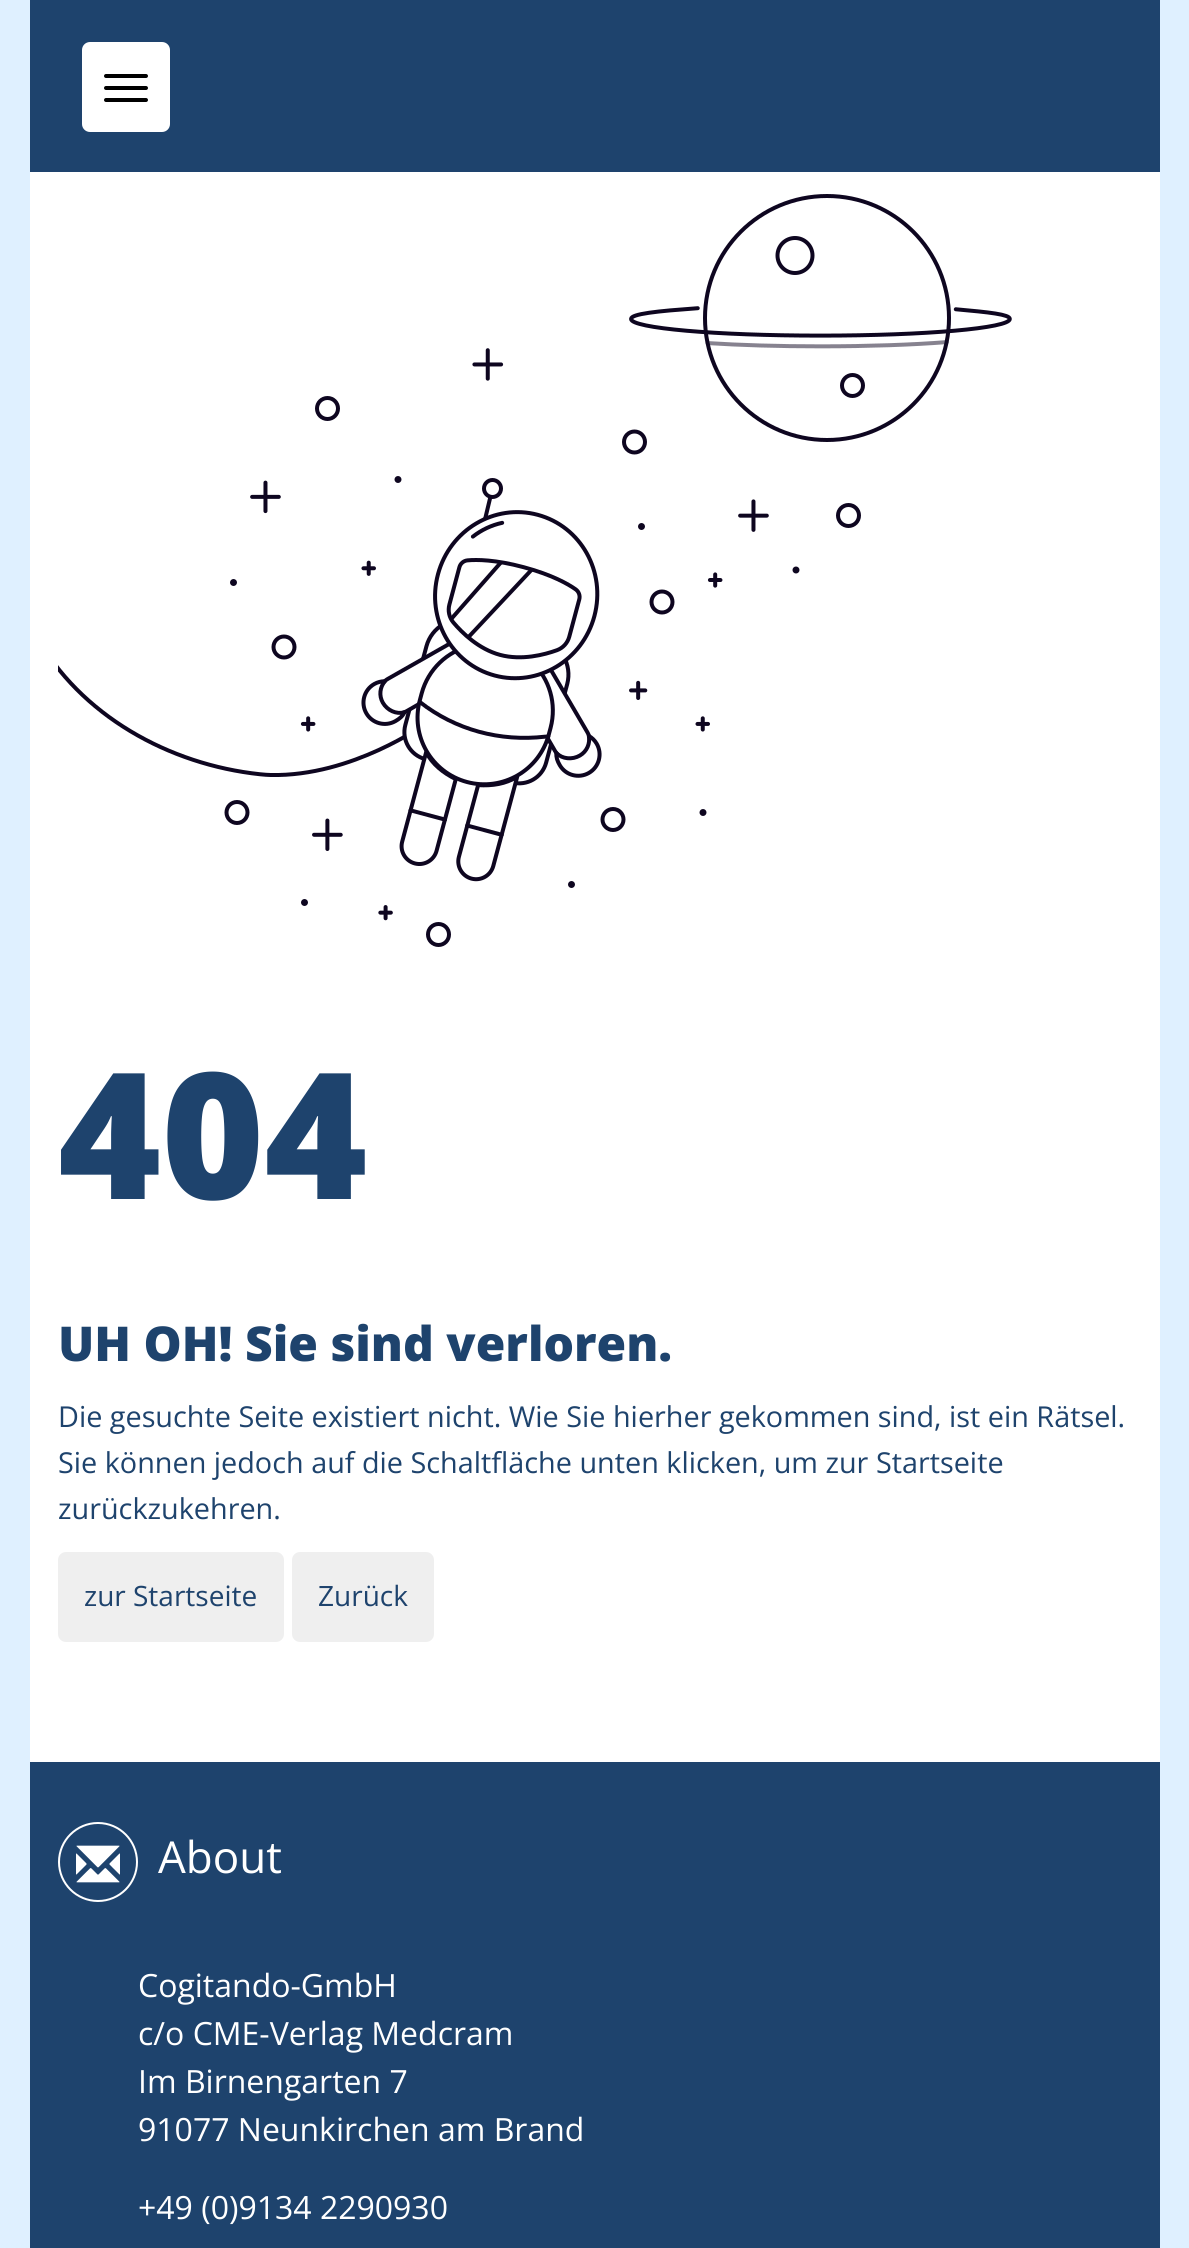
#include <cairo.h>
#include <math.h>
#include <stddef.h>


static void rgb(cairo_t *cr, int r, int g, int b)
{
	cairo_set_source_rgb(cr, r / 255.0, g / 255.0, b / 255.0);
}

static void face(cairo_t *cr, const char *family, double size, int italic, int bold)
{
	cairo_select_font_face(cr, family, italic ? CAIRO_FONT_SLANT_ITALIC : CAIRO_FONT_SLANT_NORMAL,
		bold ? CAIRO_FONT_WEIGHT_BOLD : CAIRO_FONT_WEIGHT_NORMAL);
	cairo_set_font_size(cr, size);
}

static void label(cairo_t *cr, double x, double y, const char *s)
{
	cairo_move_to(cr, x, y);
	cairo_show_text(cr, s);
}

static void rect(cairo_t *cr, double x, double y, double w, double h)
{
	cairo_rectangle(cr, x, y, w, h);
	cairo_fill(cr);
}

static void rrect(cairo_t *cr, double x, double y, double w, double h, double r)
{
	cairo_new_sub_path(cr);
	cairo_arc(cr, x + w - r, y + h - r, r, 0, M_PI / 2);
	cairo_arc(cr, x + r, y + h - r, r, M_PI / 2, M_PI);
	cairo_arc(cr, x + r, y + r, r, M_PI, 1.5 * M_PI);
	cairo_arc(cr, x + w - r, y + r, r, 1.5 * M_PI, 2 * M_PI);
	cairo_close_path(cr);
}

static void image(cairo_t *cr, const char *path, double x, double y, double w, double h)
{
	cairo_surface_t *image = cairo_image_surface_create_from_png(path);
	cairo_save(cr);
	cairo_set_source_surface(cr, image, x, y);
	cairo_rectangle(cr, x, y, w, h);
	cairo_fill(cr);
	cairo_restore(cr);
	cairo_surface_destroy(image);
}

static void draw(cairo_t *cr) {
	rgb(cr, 223, 240, 255);
	cairo_paint(cr);
	rgb(cr, 30, 67, 109);
	rect(cr, 30, 0, 1130, 172);
	rgb(cr, 255, 255, 255);
	rrect(cr, 83, 43, 86, 88, 7);
	cairo_fill_preserve(cr);
	cairo_stroke(cr);
	rgb(cr, 0, 0, 0);
	rrect(cr, 104, 74, 44, 4, 2);
	cairo_fill(cr);
	rrect(cr, 104, 86, 44, 4, 2);
	cairo_fill(cr);
	rrect(cr, 104, 98, 44, 4, 2);
	cairo_fill(cr);
	rgb(cr, 255, 255, 255);
	rect(cr, 30, 172, 1130, 1590);
	image(cr, "image0.png", 58, 194, 954, 753);
	face(cr, "Open Sans ExtraBold", 176, 0, 0);
	rgb(cr, 30, 67, 109);
	label(cr, 58, 1199, "404");
	face(cr, "Open Sans ExtraBold", 48, 0, 0);
	label(cr, 58, 1361, "UH OH! Sie sind verloren.");
	face(cr, "Open Sans", 28.8, 0, 0);
	label(cr, 58, 1427, "Die gesuchte Seite existiert nicht. Wie Sie hierher gekommen sind, ist ein Rätsel.");
	label(cr, 58, 1473, "Sie können jedoch auf die Schaltfläche unten klicken, um zur Startseite");
	label(cr, 58, 1519, "zurückzukehren.");
	rgb(cr, 239, 239, 239);
	rrect(cr, 58, 1552, 226, 90, 8);
	cairo_fill(cr);
	face(cr, "Open Sans", 28, 0, 0);
	rgb(cr, 30, 67, 109);
	label(cr, 84, 1606, "zur Startseite");
	rgb(cr, 239, 239, 239);
	rrect(cr, 292, 1552, 142, 90, 8);
	cairo_fill(cr);
	rgb(cr, 30, 67, 109);
	label(cr, 318, 1606, "Zurück");
	rect(cr, 30, 1762, 1130, 486);
	cairo_new_path(cr);
	cairo_arc(cr, 98, 1862, 39, 0, 2 * M_PI);
	rgb(cr, 255, 255, 255);
	cairo_stroke(cr);
	image(cr, "image1.png", 76, 1845, 44, 38);
	face(cr, "Open Sans", 44, 0, 0);
	label(cr, 158, 1873, "About");
	face(cr, "Open Sans", 32, 0, 0);
	label(cr, 138, 1997, "Cogitando-GmbH");
	label(cr, 138, 2045, "c/o CME-Verlag Medcram");
	label(cr, 138, 2093, "Im Birnengarten 7");
	label(cr, 138, 2141, "91077 Neunkirchen am Brand");
	label(cr, 138, 2219, "+49 (0)9134 2290930");
}

int main(void) {
	cairo_surface_t *surface = cairo_image_surface_create(CAIRO_FORMAT_RGB24, 1189, 2248);
	cairo_t *cr = cairo_create(surface);
	cairo_font_options_t *options = cairo_font_options_create();
	cairo_font_options_set_hint_metrics(options, CAIRO_HINT_METRICS_OFF);
	cairo_font_options_set_hint_style(options, CAIRO_HINT_STYLE_NONE);
	cairo_set_font_options(cr, options);
	cairo_set_miter_limit(cr, 4);
	draw(cr);
	cairo_surface_write_to_png(surface, "render.png");
	cairo_font_options_destroy(options);
	cairo_destroy(cr);
	cairo_surface_destroy(surface);
	return 0;
}
